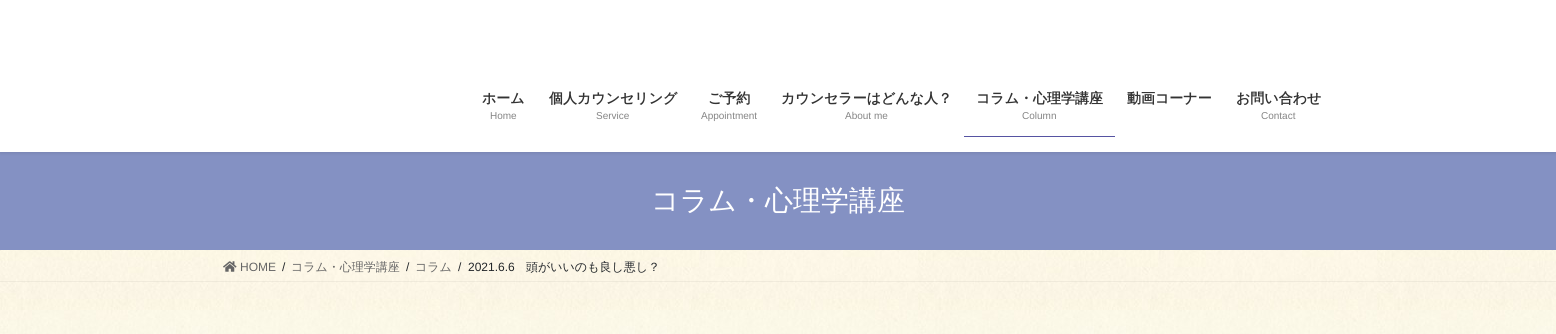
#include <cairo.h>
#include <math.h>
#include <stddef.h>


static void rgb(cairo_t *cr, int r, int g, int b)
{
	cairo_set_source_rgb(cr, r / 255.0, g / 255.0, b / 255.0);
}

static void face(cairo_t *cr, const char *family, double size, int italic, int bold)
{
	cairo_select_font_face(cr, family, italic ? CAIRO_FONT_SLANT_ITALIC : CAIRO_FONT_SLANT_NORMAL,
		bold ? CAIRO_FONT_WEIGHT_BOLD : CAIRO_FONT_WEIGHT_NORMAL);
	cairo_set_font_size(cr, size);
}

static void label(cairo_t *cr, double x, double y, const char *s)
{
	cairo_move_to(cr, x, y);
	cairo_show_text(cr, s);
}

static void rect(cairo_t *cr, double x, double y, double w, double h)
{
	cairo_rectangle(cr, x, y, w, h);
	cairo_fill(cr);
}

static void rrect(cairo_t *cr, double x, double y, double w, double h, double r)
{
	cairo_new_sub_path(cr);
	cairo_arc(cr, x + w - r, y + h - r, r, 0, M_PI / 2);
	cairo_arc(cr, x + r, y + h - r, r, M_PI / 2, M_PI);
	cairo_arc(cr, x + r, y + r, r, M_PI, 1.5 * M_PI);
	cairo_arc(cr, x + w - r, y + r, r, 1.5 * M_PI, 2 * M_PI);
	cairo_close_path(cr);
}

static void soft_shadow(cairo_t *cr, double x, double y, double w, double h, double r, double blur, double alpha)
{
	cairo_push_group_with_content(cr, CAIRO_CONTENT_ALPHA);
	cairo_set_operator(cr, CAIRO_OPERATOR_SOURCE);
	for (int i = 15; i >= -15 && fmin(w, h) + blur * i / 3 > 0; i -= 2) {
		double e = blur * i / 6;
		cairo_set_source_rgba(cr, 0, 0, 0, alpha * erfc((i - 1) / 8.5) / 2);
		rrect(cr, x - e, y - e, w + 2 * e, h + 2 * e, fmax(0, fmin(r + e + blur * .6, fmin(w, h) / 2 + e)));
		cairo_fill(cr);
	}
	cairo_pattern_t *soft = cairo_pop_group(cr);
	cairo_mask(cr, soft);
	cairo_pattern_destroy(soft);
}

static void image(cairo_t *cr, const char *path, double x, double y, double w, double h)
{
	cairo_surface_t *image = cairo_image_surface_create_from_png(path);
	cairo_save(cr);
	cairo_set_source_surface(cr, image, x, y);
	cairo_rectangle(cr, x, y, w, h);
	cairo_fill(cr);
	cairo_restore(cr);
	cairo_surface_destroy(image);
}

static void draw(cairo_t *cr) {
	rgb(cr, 255, 255, 255);
	cairo_paint(cr);
	image(cr, "image0.png", 0, 250, 1556, 84);
	rgb(cr, 132, 145, 195);
	rect(cr, 0, 152, 1556, 98);
	rgb(cr, 0, 0, 0);
	soft_shadow(cr, 0, 1, 1556, 152, 0, 1.5, 0.1);
	rgb(cr, 255, 255, 255);
	rect(cr, 0, 0, 1556, 152);
	face(cr, "WenQuanYi Zen Hei", 14, 0, 1);
	rgb(cr, 51, 51, 51);
	label(cr, 482, 103, "ホーム");
	face(cr, "Liberation Sans", 10, 0, 0);
	rgb(cr, 133, 133, 133);
	label(cr, 490, 119, "Home");
	face(cr, "WenQuanYi Zen Hei", 14, 0, 1);
	rgb(cr, 51, 51, 51);
	label(cr, 549, 103, "個人カウンセリング");
	face(cr, "Liberation Sans", 10, 0, 0);
	rgb(cr, 133, 133, 133);
	label(cr, 596, 119, "Service");
	face(cr, "WenQuanYi Zen Hei", 14, 0, 1);
	rgb(cr, 51, 51, 51);
	label(cr, 708, 103, "ご予約");
	face(cr, "Liberation Sans", 10, 0, 0);
	rgb(cr, 133, 133, 133);
	label(cr, 701, 119, "Appointment");
	face(cr, "WenQuanYi Zen Hei", 14, 0, 1);
	rgb(cr, 51, 51, 51);
	label(cr, 781, 103, "カウンセラーはどんな人？");
	face(cr, "Liberation Sans", 10, 0, 0);
	rgb(cr, 133, 133, 133);
	label(cr, 845, 119, "About me");
	face(cr, "WenQuanYi Zen Hei", 14, 0, 1);
	rgb(cr, 51, 51, 51);
	label(cr, 976, 103, "コラム・心理学講座");
	face(cr, "Liberation Sans", 10, 0, 0);
	rgb(cr, 133, 133, 133);
	label(cr, 1022, 119, "Column");
	rgb(cr, 86, 84, 162);
	rect(cr, 964, 136, 151, 1);
	face(cr, "WenQuanYi Zen Hei", 14, 0, 1);
	rgb(cr, 51, 51, 51);
	label(cr, 1127, 103, "動画コーナー");
	label(cr, 1236, 103, "お問い合わせ");
	face(cr, "Liberation Sans", 10, 0, 0);
	rgb(cr, 133, 133, 133);
	label(cr, 1261, 119, "Contact");
	face(cr, "WenQuanYi Zen Hei Medium", 28, 0, 0);
	rgb(cr, 255, 255, 255);
	label(cr, 651, 210, "コラム・心理学講座");
	cairo_set_source_rgba(cr, 0, 0, 0, 0.05);
	rect(cr, 0, 281, 1556, 1);
	image(cr, "image1.png", 223, 261, 14, 11);
	face(cr, "Liberation Sans", 12, 0, 0);
	rgb(cr, 102, 102, 102);
	label(cr, 240, 271, "HOME");
	rgb(cr, 33, 37, 41);
	label(cr, 282, 271, "/");
	face(cr, "WenQuanYi Zen Hei Medium", 12, 0, 0);
	rgb(cr, 102, 102, 102);
	label(cr, 291, 271, "コラム・心理学講座");
	face(cr, "Liberation Sans", 12, 0, 0);
	rgb(cr, 33, 37, 41);
	label(cr, 406, 271, "/");
	face(cr, "WenQuanYi Zen Hei Medium", 12, 0, 0);
	rgb(cr, 102, 102, 102);
	label(cr, 415, 271, "コラム");
	face(cr, "Liberation Sans", 12, 0, 0);
	rgb(cr, 33, 37, 41);
	label(cr, 458, 271, "/");
	label(cr, 468, 271, "2021.6.6");
	face(cr, "WenQuanYi Zen Hei Medium", 12, 0, 0);
	label(cr, 526, 271, "頭がいいのも良し悪し？");
}

int main(void) {
	cairo_surface_t *surface = cairo_image_surface_create(CAIRO_FORMAT_RGB24, 1556, 334);
	cairo_t *cr = cairo_create(surface);
	cairo_font_options_t *options = cairo_font_options_create();
	cairo_font_options_set_hint_metrics(options, CAIRO_HINT_METRICS_OFF);
	cairo_font_options_set_hint_style(options, CAIRO_HINT_STYLE_NONE);
	cairo_set_font_options(cr, options);
	cairo_set_miter_limit(cr, 4);
	draw(cr);
	cairo_surface_write_to_png(surface, "render.png");
	cairo_font_options_destroy(options);
	cairo_destroy(cr);
	cairo_surface_destroy(surface);
	return 0;
}
